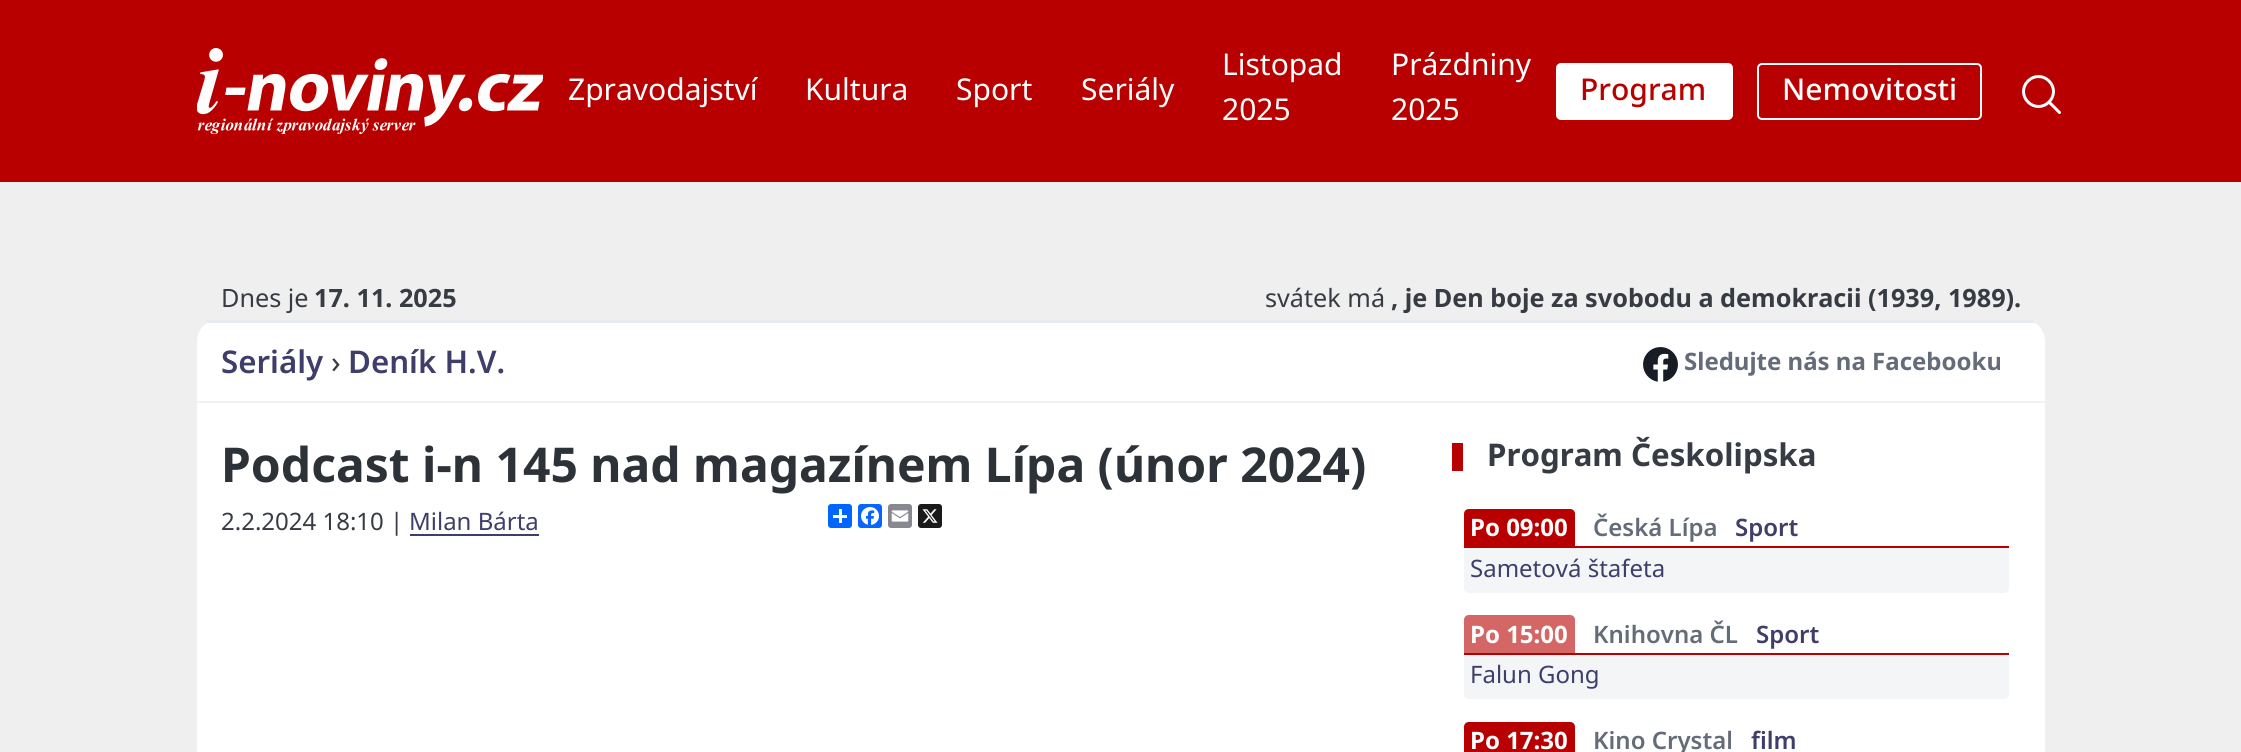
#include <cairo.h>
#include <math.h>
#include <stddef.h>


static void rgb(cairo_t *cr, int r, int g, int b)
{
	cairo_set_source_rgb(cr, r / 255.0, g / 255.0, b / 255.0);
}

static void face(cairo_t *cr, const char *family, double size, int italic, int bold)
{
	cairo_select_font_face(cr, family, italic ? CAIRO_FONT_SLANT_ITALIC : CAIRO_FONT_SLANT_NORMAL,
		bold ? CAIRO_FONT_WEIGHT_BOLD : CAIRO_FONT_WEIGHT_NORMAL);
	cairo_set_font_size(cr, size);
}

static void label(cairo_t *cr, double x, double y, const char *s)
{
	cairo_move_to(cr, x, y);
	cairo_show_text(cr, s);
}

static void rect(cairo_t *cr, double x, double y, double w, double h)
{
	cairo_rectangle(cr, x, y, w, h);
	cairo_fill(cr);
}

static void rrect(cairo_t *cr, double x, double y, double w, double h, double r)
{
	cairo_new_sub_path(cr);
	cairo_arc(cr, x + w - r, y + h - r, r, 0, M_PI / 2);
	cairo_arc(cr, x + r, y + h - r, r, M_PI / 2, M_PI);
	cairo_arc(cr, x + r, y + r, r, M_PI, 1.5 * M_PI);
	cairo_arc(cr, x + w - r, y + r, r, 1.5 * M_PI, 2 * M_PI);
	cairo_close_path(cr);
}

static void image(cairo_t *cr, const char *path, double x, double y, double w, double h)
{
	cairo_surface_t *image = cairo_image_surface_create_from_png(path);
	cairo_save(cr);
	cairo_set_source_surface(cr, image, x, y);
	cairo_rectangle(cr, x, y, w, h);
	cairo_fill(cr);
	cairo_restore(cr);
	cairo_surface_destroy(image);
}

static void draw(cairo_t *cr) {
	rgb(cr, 184, 0, 0);
	cairo_paint(cr);
	image(cr, "image0.png", 197, 48, 346, 86);
	face(cr, "Noto Sans", 30, 0, 0);
	rgb(cr, 255, 255, 255);
	label(cr, 568, 100, "Zpravodajství");
	label(cr, 805, 100, "Kultura");
	label(cr, 956, 100, "Sport");
	label(cr, 1081, 100, "Seriály");
	label(cr, 1222, 75, "Listopad");
	label(cr, 1222, 120, "2025");
	label(cr, 1391, 75, "Prázdniny");
	label(cr, 1391, 120, "2025");
	rrect(cr, 1557, 64, 175, 55, 4);
	cairo_fill_preserve(cr);
	cairo_stroke(cr);
	face(cr, "Noto Sans Medium", 30, 0, 0);
	rgb(cr, 184, 0, 0);
	label(cr, 1580, 100, "Program");
	rrect(cr, 1758, 64, 223, 55, 4);
	rgb(cr, 255, 255, 255);
	cairo_stroke(cr);
	label(cr, 1782, 100, "Nemovitosti");
	cairo_new_path(cr);
	cairo_move_to(cr, 2059.5, 112.5);
	cairo_line_to(cr, 2049, 102);
	cairo_move_to(cr, 2049, 102);
	cairo_curve_to(cr, 2055, 96, 2055, 87, 2049, 81);
	cairo_curve_to(cr, 2043, 75, 2034, 75, 2028, 81);
	cairo_curve_to(cr, 2022, 87, 2022, 96, 2028, 102);
	cairo_curve_to(cr, 2034, 108, 2043, 108, 2049, 102);
	cairo_close_path(cr);
	cairo_set_line_width(cr, 3);
	cairo_set_line_cap(cr, CAIRO_LINE_CAP_ROUND);
	cairo_set_line_join(cr, CAIRO_LINE_JOIN_ROUND);
	cairo_stroke(cr);
	rgb(cr, 239, 239, 239);
	rect(cr, 0, 182, 2241, 570);
	face(cr, "Noto Sans", 25.2, 0, 0);
	rgb(cr, 55, 60, 68);
	label(cr, 221, 307, "Dnes je");
	face(cr, "Noto Sans", 25.2, 0, 1);
	label(cr, 314, 307, "17. 11. 2025");
	face(cr, "Noto Sans", 25.2, 0, 0);
	label(cr, 1265, 307, "svátek má");
	face(cr, "Noto Sans", 25.2, 0, 1);
	label(cr, 1391, 307, ", je Den boje za svobodu a demokracii (1939, 1989).");
	rgb(cr, 255, 255, 255);
	cairo_new_path(cr);
	cairo_move_to(cr, 218, 320);
	cairo_line_to(cr, 2024, 320);
	cairo_curve_to(cr, 2035.5, 320, 2045, 329.5, 2045, 341);
	cairo_line_to(cr, 2045, 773);
	cairo_line_to(cr, 197, 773);
	cairo_line_to(cr, 197, 341);
	cairo_curve_to(cr, 197, 329.5, 206.5, 320, 218, 320);
	cairo_close_path(cr);
	cairo_fill(cr);
	rgb(cr, 231, 234, 240);
	rect(cr, 207, 320, 1827, 3);
	rgb(cr, 239, 241, 244);
	rect(cr, 197, 401, 1848, 2);
	face(cr, "Noto Sans SemiBold", 31.25, 0, 0);
	rgb(cr, 63, 62, 107);
	label(cr, 221, 373, "Seriály");
	face(cr, "Noto Sans", 31.25, 0, 0);
	rgb(cr, 55, 60, 68);
	label(cr, 331, 373, "›");
	face(cr, "Noto Sans SemiBold", 31.25, 0, 0);
	rgb(cr, 63, 62, 107);
	label(cr, 348, 373, "Deník H.V.");
	image(cr, "image1.png", 1643, 347, 35, 35);
	face(cr, "Noto Sans", 24, 0, 1);
	rgb(cr, 100, 107, 121);
	label(cr, 1684, 370, "Sledujte nás na Facebooku");
	face(cr, "Noto Sans", 48, 0, 1);
	rgb(cr, 45, 49, 56);
	label(cr, 221, 482, "Podcast i-n 145 nad magazínem Lípa (únor 2024)");
	face(cr, "Noto Sans", 24, 0, 0);
	rgb(cr, 55, 60, 68);
	label(cr, 221, 530, "2.2.2024 18:10 |");
	rgb(cr, 63, 62, 107);
	label(cr, 409, 530, "Milan Bárta");
	rect(cr, 410, 534, 129, 2);
	rgb(cr, 1, 102, 255);
	rrect(cr, 828, 504, 24, 24, 3);
	cairo_fill(cr);
	rgb(cr, 255, 255, 255);
	rect(cr, 839, 509, 3, 14);
	rect(cr, 833, 515, 14, 3);
	rgb(cr, 8, 102, 255);
	rrect(cr, 858, 504, 24, 24, 3);
	cairo_fill(cr);
	image(cr, "image2.png", 861, 507, 18, 18);
	rgb(cr, 136, 137, 144);
	rrect(cr, 888, 504, 24, 24, 3);
	cairo_fill(cr);
	image(cr, "image3.png", 891, 510, 18, 12);
	rgb(cr, 26, 26, 26);
	rrect(cr, 918, 504, 24, 24, 3);
	cairo_fill(cr);
	image(cr, "image4.png", 922, 509, 16, 14);
	rgb(cr, 184, 0, 0);
	rect(cr, 1452, 443, 11, 28);
	face(cr, "Noto Sans", 31.25, 0, 1);
	rgb(cr, 55, 60, 68);
	label(cr, 1487, 466, "Program Českolipska");
	rgb(cr, 243, 245, 247);
	cairo_new_path(cr);
	cairo_move_to(cr, 1464, 546);
	cairo_line_to(cr, 2009, 546);
	cairo_line_to(cr, 2009, 588);
	cairo_curve_to(cr, 2009, 591, 2007, 593, 2004, 593);
	cairo_line_to(cr, 1469, 593);
	cairo_curve_to(cr, 1466, 593, 1464, 591, 1464, 588);
	cairo_close_path(cr);
	cairo_fill(cr);
	rgb(cr, 184, 0, 0);
	cairo_new_path(cr);
	cairo_move_to(cr, 1469, 509);
	cairo_line_to(cr, 1570, 509);
	cairo_curve_to(cr, 1573, 509, 1575, 511, 1575, 514);
	cairo_line_to(cr, 1575, 548);
	cairo_line_to(cr, 1464, 548);
	cairo_line_to(cr, 1464, 514);
	cairo_curve_to(cr, 1464, 511, 1466, 509, 1469, 509);
	cairo_close_path(cr);
	cairo_fill(cr);
	face(cr, "Noto Sans", 24, 0, 1);
	rgb(cr, 255, 255, 255);
	label(cr, 1470, 536, "Po 09:00");
	face(cr, "Noto Sans SemiBold", 24, 0, 0);
	rgb(cr, 100, 107, 121);
	label(cr, 1593, 536, "Česká Lípa");
	rgb(cr, 63, 62, 107);
	label(cr, 1735, 536, "Sport");
	rgb(cr, 184, 0, 0);
	rect(cr, 1575, 546, 434, 2);
	face(cr, "Noto Sans", 24, 0, 0);
	rgb(cr, 63, 62, 107);
	label(cr, 1470, 577, "Sametová štafeta");
	rgb(cr, 243, 245, 247);
	cairo_new_path(cr);
	cairo_move_to(cr, 1464, 653);
	cairo_line_to(cr, 2009, 653);
	cairo_line_to(cr, 2009, 694);
	cairo_curve_to(cr, 2009, 697, 2007, 699, 2004, 699);
	cairo_line_to(cr, 1469, 699);
	cairo_curve_to(cr, 1466, 699, 1464, 697, 1464, 694);
	cairo_close_path(cr);
	cairo_fill(cr);
	rgb(cr, 184, 0, 0);
	rect(cr, 1464, 653, 545, 2);
	cairo_set_source_rgba(cr, 0.722, 0, 0, 0.6);
	cairo_new_path(cr);
	cairo_move_to(cr, 1469, 615);
	cairo_line_to(cr, 1570, 615);
	cairo_curve_to(cr, 1573, 615, 1575, 617, 1575, 620);
	cairo_line_to(cr, 1575, 654);
	cairo_line_to(cr, 1464, 654);
	cairo_line_to(cr, 1464, 620);
	cairo_curve_to(cr, 1464, 617, 1466, 615, 1469, 615);
	cairo_close_path(cr);
	cairo_fill(cr);
	face(cr, "Noto Sans", 24, 0, 1);
	rgb(cr, 255, 255, 255);
	label(cr, 1470, 643, "Po 15:00");
	face(cr, "Noto Sans SemiBold", 24, 0, 0);
	rgb(cr, 100, 107, 121);
	label(cr, 1593, 643, "Knihovna ČL");
	rgb(cr, 63, 62, 107);
	label(cr, 1756, 643, "Sport");
	face(cr, "Noto Sans", 24, 0, 0);
	label(cr, 1470, 683, "Falun Gong");
	rgb(cr, 184, 0, 0);
	cairo_new_path(cr);
	cairo_move_to(cr, 1469, 722);
	cairo_line_to(cr, 1570, 722);
	cairo_curve_to(cr, 1573, 722, 1575, 724, 1575, 727);
	cairo_line_to(cr, 1575, 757);
	cairo_line_to(cr, 1464, 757);
	cairo_line_to(cr, 1464, 727);
	cairo_curve_to(cr, 1464, 724, 1466, 722, 1469, 722);
	cairo_close_path(cr);
	cairo_fill(cr);
	face(cr, "Noto Sans", 24, 0, 1);
	rgb(cr, 255, 255, 255);
	label(cr, 1470, 749, "Po 17:30");
	face(cr, "Noto Sans SemiBold", 24, 0, 0);
	rgb(cr, 100, 107, 121);
	label(cr, 1593, 749, "Kino Crystal");
	rgb(cr, 63, 62, 107);
	label(cr, 1751, 749, "film");
}

int main(void) {
	cairo_surface_t *surface = cairo_image_surface_create(CAIRO_FORMAT_RGB24, 2241, 752);
	cairo_t *cr = cairo_create(surface);
	cairo_font_options_t *options = cairo_font_options_create();
	cairo_font_options_set_hint_metrics(options, CAIRO_HINT_METRICS_OFF);
	cairo_font_options_set_hint_style(options, CAIRO_HINT_STYLE_NONE);
	cairo_set_font_options(cr, options);
	cairo_set_miter_limit(cr, 4);
	draw(cr);
	cairo_surface_write_to_png(surface, "render.png");
	cairo_font_options_destroy(options);
	cairo_destroy(cr);
	cairo_surface_destroy(surface);
	return 0;
}
